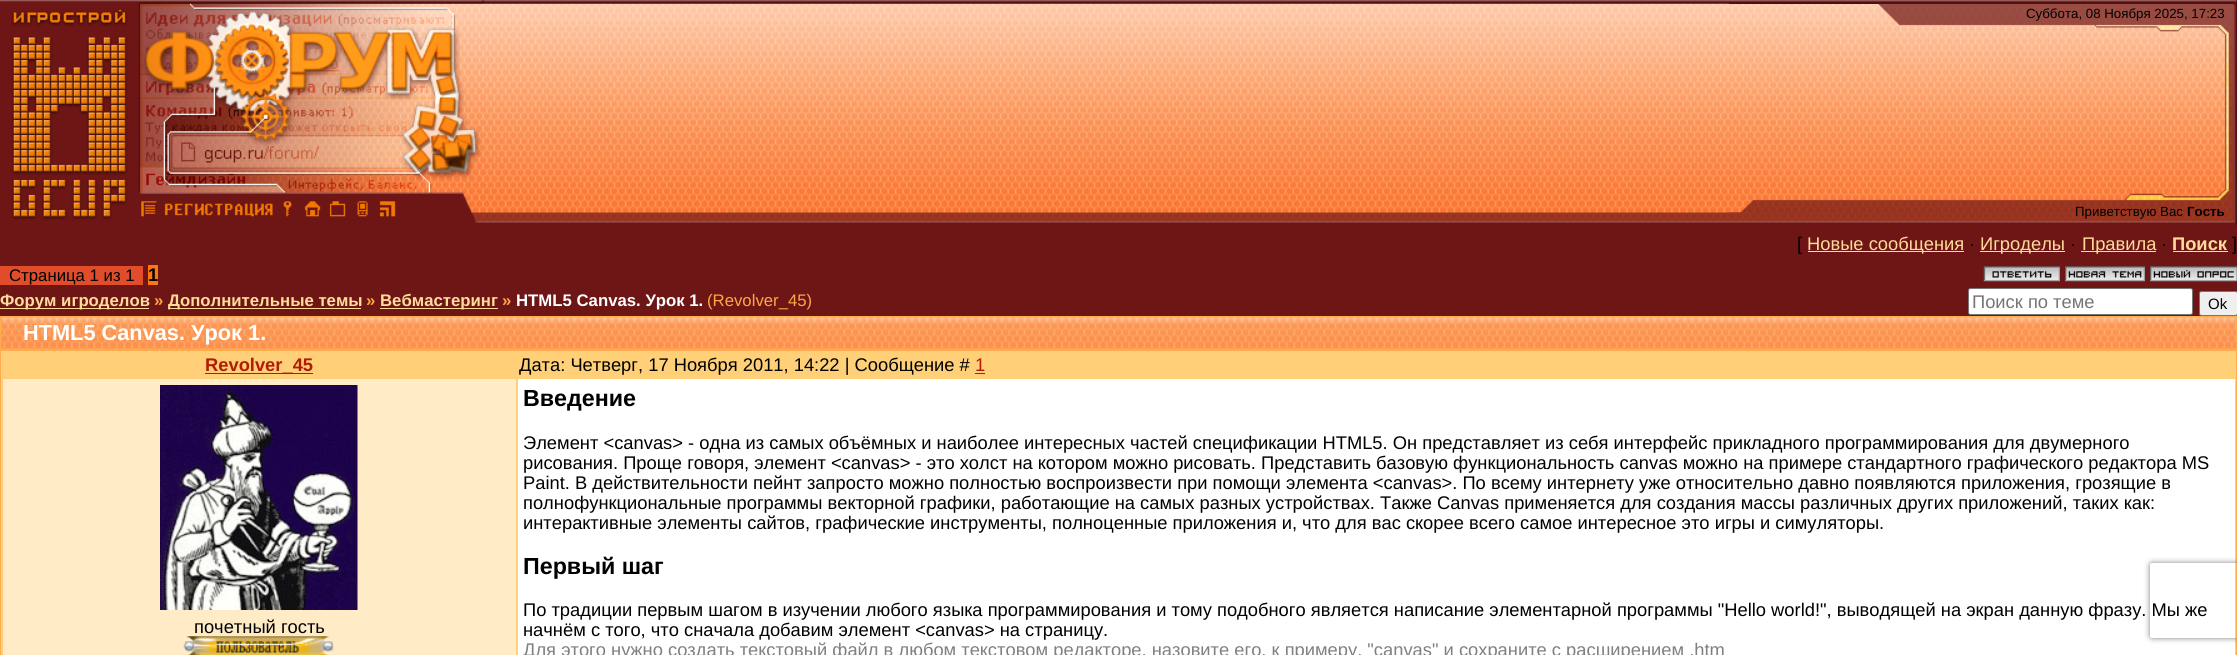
#include <cairo.h>
#include <math.h>
#include <stddef.h>


static void rgb(cairo_t *cr, int r, int g, int b)
{
	cairo_set_source_rgb(cr, r / 255.0, g / 255.0, b / 255.0);
}

static void face(cairo_t *cr, const char *family, double size, int italic, int bold)
{
	cairo_select_font_face(cr, family, italic ? CAIRO_FONT_SLANT_ITALIC : CAIRO_FONT_SLANT_NORMAL,
		bold ? CAIRO_FONT_WEIGHT_BOLD : CAIRO_FONT_WEIGHT_NORMAL);
	cairo_set_font_size(cr, size);
}

static void label(cairo_t *cr, double x, double y, const char *s)
{
	cairo_move_to(cr, x, y);
	cairo_show_text(cr, s);
}

static void rect(cairo_t *cr, double x, double y, double w, double h)
{
	cairo_rectangle(cr, x, y, w, h);
	cairo_fill(cr);
}

static void rrect(cairo_t *cr, double x, double y, double w, double h, double r)
{
	cairo_new_sub_path(cr);
	cairo_arc(cr, x + w - r, y + h - r, r, 0, M_PI / 2);
	cairo_arc(cr, x + r, y + h - r, r, M_PI / 2, M_PI);
	cairo_arc(cr, x + r, y + r, r, M_PI, 1.5 * M_PI);
	cairo_arc(cr, x + w - r, y + r, r, 1.5 * M_PI, 2 * M_PI);
	cairo_close_path(cr);
}

static void soft_shadow(cairo_t *cr, double x, double y, double w, double h, double r, double blur, double alpha)
{
	cairo_push_group_with_content(cr, CAIRO_CONTENT_ALPHA);
	cairo_set_operator(cr, CAIRO_OPERATOR_SOURCE);
	for (int i = 15; i >= -15 && fmin(w, h) + blur * i / 3 > 0; i -= 2) {
		double e = blur * i / 6;
		cairo_set_source_rgba(cr, 0, 0, 0, alpha * erfc((i - 1) / 8.5) / 2);
		rrect(cr, x - e, y - e, w + 2 * e, h + 2 * e, fmax(0, fmin(r + e + blur * .6, fmin(w, h) / 2 + e)));
		cairo_fill(cr);
	}
	cairo_pattern_t *soft = cairo_pop_group(cr);
	cairo_mask(cr, soft);
	cairo_pattern_destroy(soft);
}

static void image(cairo_t *cr, const char *path, double x, double y, double w, double h)
{
	cairo_surface_t *image = cairo_image_surface_create_from_png(path);
	cairo_save(cr);
	cairo_set_source_surface(cr, image, x, y);
	cairo_rectangle(cr, x, y, w, h);
	cairo_fill(cr);
	cairo_restore(cr);
	cairo_surface_destroy(image);
}

static void draw(cairo_t *cr) {
	rgb(cr, 110, 22, 22);
	cairo_paint(cr);
	image(cr, "image0.png", 483, 0, 1743, 223);
	image(cr, "image1.png", 0, 0, 484, 223);
	image(cr, "image2.png", 141, 201, 16, 16);
	image(cr, "image3.png", 164, 203, 109, 14);
	image(cr, "image4.png", 283, 201, 9, 16);
	image(cr, "image5.png", 304, 201, 17, 16);
	image(cr, "image6.png", 329, 201, 17, 16);
	image(cr, "image7.png", 357, 201, 11, 16);
	image(cr, "image8.png", 379, 201, 17, 16);
	image(cr, "image9.png", 1728, 0, 509, 225);
	face(cr, "Liberation Sans", 13.3, 0, 0);
	rgb(cr, 0, 0, 0);
	label(cr, 2026, 18, "Суббота, 08 Ноября 2025, 17:23");
	label(cr, 2075, 216, "Приветствую Вас");
	face(cr, "Liberation Sans", 13.3, 0, 1);
	label(cr, 2187, 216, "Гость");
	face(cr, "Liberation Sans", 18.33, 0, 0);
	label(cr, 1797, 250, "[");
	rgb(cr, 255, 220, 153);
	rect(cr, 1808, 251, 156, 1);
	label(cr, 1807, 250, "Новые сообщения");
	rgb(cr, 0, 0, 0);
	label(cr, 1969, 250, "·");
	rgb(cr, 255, 220, 153);
	rect(cr, 1980, 251, 85, 1);
	label(cr, 1980, 250, "Игроделы");
	rgb(cr, 0, 0, 0);
	label(cr, 2070, 250, "·");
	rgb(cr, 255, 220, 153);
	rect(cr, 2081, 251, 75, 1);
	label(cr, 2082, 250, "Правила");
	rgb(cr, 0, 0, 0);
	label(cr, 2161, 250, "·");
	face(cr, "Liberation Sans", 18.33, 0, 1);
	rgb(cr, 255, 220, 153);
	label(cr, 2172, 250, "Поиск");
	rect(cr, 2173, 251, 55, 1);
	face(cr, "Liberation Sans", 18.33, 0, 0);
	rgb(cr, 0, 0, 0);
	label(cr, 2232, 250, "]");
	rgb(cr, 225, 76, 42);
	rect(cr, 0, 266, 143, 19);
	face(cr, "Liberation Sans", 16.75, 0, 0);
	rgb(cr, 0, 0, 0);
	label(cr, 9, 281, "Страница 1 из 1");
	rgb(cr, 255, 118, 17);
	rect(cr, 148, 265, 10, 20);
	face(cr, "Liberation Sans", 18.33, 0, 1);
	rgb(cr, 0, 0, 0);
	label(cr, 148, 281, "1");
	image(cr, "image10.png", 1983, 266, 77, 16);
	image(cr, "image11.png", 2065, 266, 80, 16);
	image(cr, "image12.png", 2150, 266, 87, 16);
	rgb(cr, 255, 220, 153);
	rect(cr, 0, 308, 149, 1);
	face(cr, "Liberation Sans", 16.75, 0, 1);
	label(cr, 0, 306, "Форум игроделов");
	rgb(cr, 255, 167, 71);
	label(cr, 154, 306, "»");
	rgb(cr, 255, 220, 153);
	rect(cr, 168, 308, 193, 1);
	label(cr, 168, 306, "Дополнительные темы");
	rgb(cr, 255, 167, 71);
	label(cr, 366, 306, "»");
	rgb(cr, 255, 220, 153);
	rect(cr, 380, 308, 118, 1);
	label(cr, 380, 306, "Вебмастеринг");
	rgb(cr, 255, 167, 71);
	label(cr, 502, 306, "»");
	rgb(cr, 255, 255, 255);
	label(cr, 516, 306, "HTML5 Canvas. Урок 1.");
	face(cr, "Liberation Sans", 16.75, 0, 0);
	rgb(cr, 255, 167, 71);
	label(cr, 707, 306, "(Revolver_45)");
	rgb(cr, 255, 255, 255);
	rrect(cr, 1968.5, 288.5, 224, 26, 2);
	cairo_fill_preserve(cr);
	rgb(cr, 118, 118, 118);
	cairo_set_line_width(cr, 1);
	cairo_stroke(cr);
	face(cr, "Liberation Sans", 18.33, 0, 0);
	rgb(cr, 117, 117, 117);
	label(cr, 1972, 308, "Поиск по теме");
	rgb(cr, 239, 239, 239);
	rrect(cr, 2199.5, 291.5, 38, 24, 2);
	cairo_fill_preserve(cr);
	rgb(cr, 118, 118, 118);
	cairo_stroke(cr);
	face(cr, "Liberation Sans", 15, 0, 0);
	rgb(cr, 0, 0, 0);
	label(cr, 2208, 309, "Ok");
	rgb(cr, 255, 172, 76);
	rect(cr, 0, 316, 2237, 339);
	image(cr, "image13.png", 1, 317, 2236, 32);
	face(cr, "Liberation Sans", 21.75, 0, 1);
	rgb(cr, 255, 255, 255);
	label(cr, 23, 340, "HTML5 Canvas. Урок 1.");
	rgb(cr, 255, 208, 119);
	rect(cr, 1, 351, 2235, 304);
	rgb(cr, 178, 27, 4);
	rect(cr, 205, 373, 108, 1);
	face(cr, "Liberation Sans", 18.33, 0, 1);
	label(cr, 205, 371, "Revolver_45");
	face(cr, "Liberation Sans", 18.33, 0, 0);
	rgb(cr, 0, 0, 0);
	label(cr, 519, 371, "Дата: Четверг, 17 Ноября 2011, 14:22 | Сообщение #");
	rgb(cr, 178, 27, 4);
	label(cr, 975, 371, "1");
	rect(cr, 975, 373, 10, 1);
	rgb(cr, 255, 236, 199);
	rect(cr, 3, 379, 513, 276);
	image(cr, "image14.png", 160, 385, 198, 225);
	rgb(cr, 0, 0, 0);
	label(cr, 194, 633, "почетный гость");
	image(cr, "image15.png", 183, 636, 151, 19);
	rgb(cr, 255, 255, 255);
	rect(cr, 518, 379, 1717, 276);
	face(cr, "Liberation Sans", 23.25, 0, 1);
	rgb(cr, 0, 0, 0);
	label(cr, 523, 406, "Введение");
	face(cr, "Liberation Sans", 18.33, 0, 0);
	label(cr, 523, 449, "Элемент <canvas> - одна из самых объёмных и наиболее интересных частей спецификации HTML5. Он представляет из себя интерфейс прикладного программирования для двумерного");
	label(cr, 523, 469, "рисования. Проще говоря, элемент <canvas> - это холст на котором можно рисовать. Представить базовую функциональность canvas можно на примере стандартного графического редактора MS");
	label(cr, 523, 489, "Paint. В действительности пейнт запросто можно полностью воспроизвести при помощи элемента <canvas>. По всему интернету уже относительно давно появляются приложения, грозящие в");
	label(cr, 523, 509, "полнофункциональные программы векторной графики, работающие на самых разных устройствах. Также Canvas применяется для создания массы различных других приложений, таких как:");
	label(cr, 523, 529, "интерактивные элементы сайтов, графические инструменты, полноценные приложения и, что для вас скорее всего самое интересное это игры и симуляторы.");
	face(cr, "Liberation Sans", 23.25, 0, 1);
	label(cr, 523, 574, "Первый шаг");
	face(cr, "Liberation Sans", 18.33, 0, 0);
	label(cr, 523, 616, "По традиции первым шагом в изучении любого языка программирования и тому подобного является написание элементарной программы \"Hello world!\", выводящей на экран данную фразу. Мы же");
	label(cr, 523, 636, "начнём с того, что сначала добавим элемент <canvas> на страницу.");
	rgb(cr, 128, 128, 128);
	label(cr, 523, 656, "Для этого нужно создать текстовый файл в любом текстовом редакторе, назовите его, к примеру, \"canvas\" и сохраните с расширением .htm");
	cairo_save(cr);
	cairo_set_fill_rule(cr, CAIRO_FILL_RULE_EVEN_ODD);
	cairo_new_path(cr);
	cairo_move_to(cr, 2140, 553);
	cairo_line_to(cr, 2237, 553);
	cairo_line_to(cr, 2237, 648);
	cairo_line_to(cr, 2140, 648);
	cairo_close_path(cr);
	cairo_move_to(cr, 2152.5, 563);
	cairo_line_to(cr, 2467.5, 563);
	cairo_curve_to(cr, 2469, 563, 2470, 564, 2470, 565.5);
	cairo_line_to(cr, 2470, 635.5);
	cairo_curve_to(cr, 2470, 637, 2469, 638, 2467.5, 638);
	cairo_line_to(cr, 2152.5, 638);
	cairo_curve_to(cr, 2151, 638, 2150, 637, 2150, 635.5);
	cairo_line_to(cr, 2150, 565.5);
	cairo_curve_to(cr, 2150, 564, 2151, 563, 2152.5, 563);
	cairo_close_path(cr);
	cairo_clip(cr);
	rgb(cr, 128, 128, 128);
	soft_shadow(cr, 2150, 563, 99, 75, 2.5, 3, 1);
	cairo_restore(cr);
}

int main(void) {
	cairo_surface_t *surface = cairo_image_surface_create(CAIRO_FORMAT_RGB24, 2237, 655);
	cairo_t *cr = cairo_create(surface);
	cairo_font_options_t *options = cairo_font_options_create();
	cairo_font_options_set_hint_metrics(options, CAIRO_HINT_METRICS_OFF);
	cairo_font_options_set_hint_style(options, CAIRO_HINT_STYLE_NONE);
	cairo_set_font_options(cr, options);
	cairo_set_miter_limit(cr, 4);
	draw(cr);
	cairo_surface_write_to_png(surface, "render.png");
	cairo_font_options_destroy(options);
	cairo_destroy(cr);
	cairo_surface_destroy(surface);
	return 0;
}
